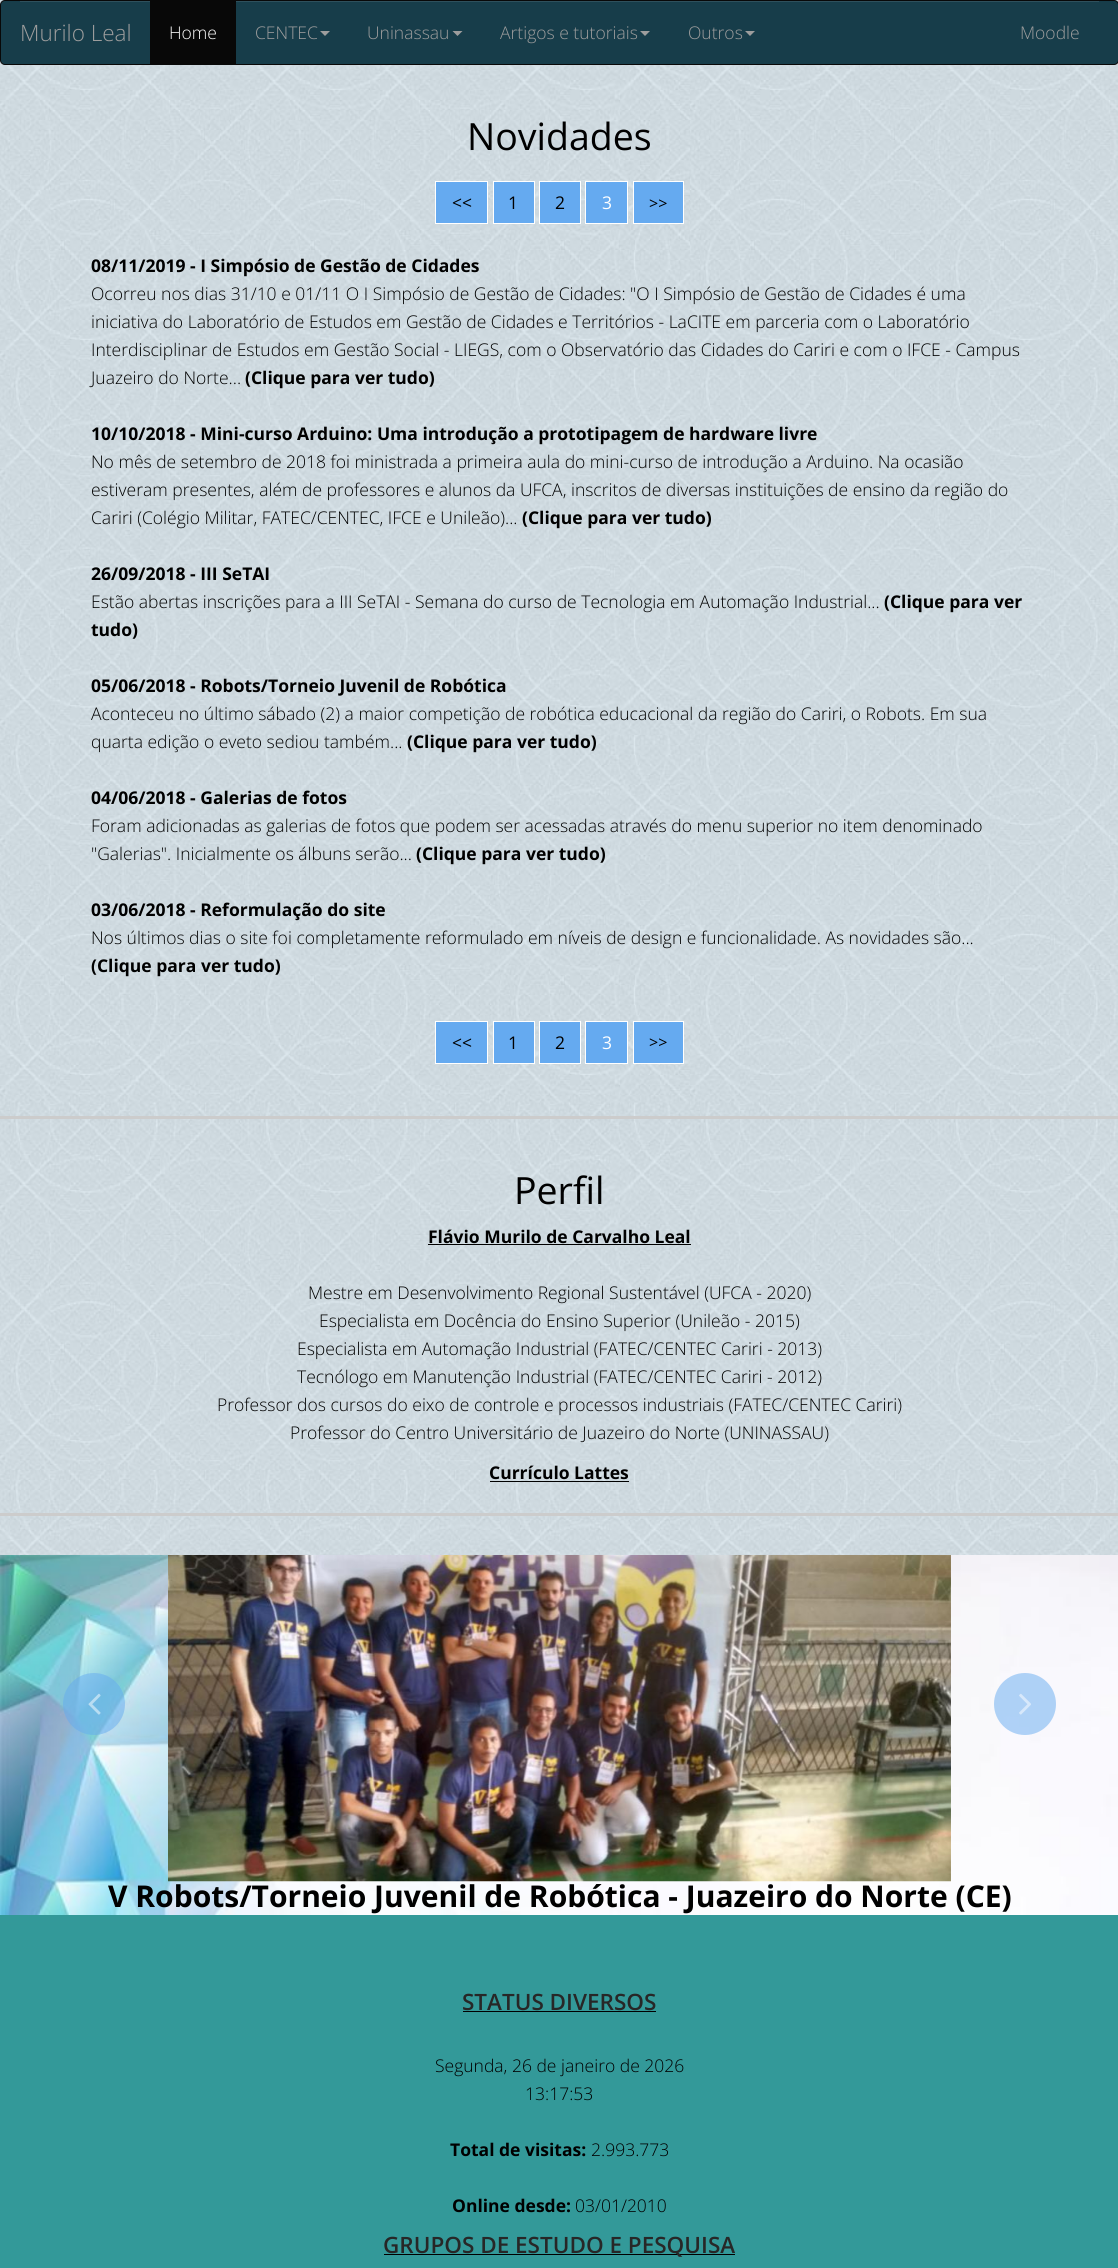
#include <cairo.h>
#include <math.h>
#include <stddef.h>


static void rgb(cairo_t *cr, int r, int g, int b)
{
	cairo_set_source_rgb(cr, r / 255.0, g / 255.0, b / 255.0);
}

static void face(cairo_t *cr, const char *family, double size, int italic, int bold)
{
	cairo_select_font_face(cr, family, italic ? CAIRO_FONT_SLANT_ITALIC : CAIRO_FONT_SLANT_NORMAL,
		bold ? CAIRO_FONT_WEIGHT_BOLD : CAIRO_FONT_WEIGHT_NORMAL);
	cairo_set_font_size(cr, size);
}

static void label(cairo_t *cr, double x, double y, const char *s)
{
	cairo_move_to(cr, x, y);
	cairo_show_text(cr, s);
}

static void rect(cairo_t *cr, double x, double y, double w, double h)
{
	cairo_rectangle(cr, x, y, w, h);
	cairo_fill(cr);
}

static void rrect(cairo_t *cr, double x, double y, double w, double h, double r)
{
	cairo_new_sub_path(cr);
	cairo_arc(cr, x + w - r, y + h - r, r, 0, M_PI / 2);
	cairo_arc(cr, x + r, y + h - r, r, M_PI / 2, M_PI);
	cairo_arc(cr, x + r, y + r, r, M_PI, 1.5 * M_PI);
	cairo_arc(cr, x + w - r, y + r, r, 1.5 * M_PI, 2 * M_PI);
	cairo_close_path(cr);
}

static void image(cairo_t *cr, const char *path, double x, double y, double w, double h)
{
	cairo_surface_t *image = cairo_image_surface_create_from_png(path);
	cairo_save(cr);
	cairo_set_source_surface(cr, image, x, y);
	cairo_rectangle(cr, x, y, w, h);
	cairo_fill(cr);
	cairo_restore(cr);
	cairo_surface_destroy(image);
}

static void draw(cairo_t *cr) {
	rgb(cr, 255, 255, 255);
	cairo_paint(cr);
	image(cr, "image0.png", 0, 0, 1118, 1555);
	rgb(cr, 23, 61, 74);
	rrect(cr, 0.5, 0.5, 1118, 64, 4.5);
	cairo_fill_preserve(cr);
	rgb(cr, 8, 8, 8);
	cairo_set_line_width(cr, 1);
	cairo_stroke(cr);
	face(cr, "Open Sans Light", 22.5, 0, 0);
	rgb(cr, 157, 157, 157);
	label(cr, 20, 41, "Murilo Leal");
	rgb(cr, 46, 80, 92);
	rect(cr, 20, 1, 1079, 1);
	rgb(cr, 8, 8, 8);
	rect(cr, 150, 1, 86, 63);
	face(cr, "Open Sans Light", 17.5, 0, 0);
	rgb(cr, 255, 255, 255);
	label(cr, 169, 39, "Home");
	rgb(cr, 157, 157, 157);
	label(cr, 255, 39, "CENTEC");
	cairo_new_path(cr);
	cairo_move_to(cr, 320, 31);
	cairo_line_to(cr, 330, 31);
	cairo_line_to(cr, 325, 36);
	cairo_close_path(cr);
	cairo_fill(cr);
	label(cr, 367, 39, "Uninassau");
	cairo_new_path(cr);
	cairo_move_to(cr, 452.5, 31);
	cairo_line_to(cr, 462.5, 31);
	cairo_line_to(cr, 457.5, 36);
	cairo_close_path(cr);
	cairo_fill(cr);
	label(cr, 500, 39, "Artigos e tutoriais");
	cairo_new_path(cr);
	cairo_move_to(cr, 640, 31);
	cairo_line_to(cr, 650, 31);
	cairo_line_to(cr, 645, 36);
	cairo_close_path(cr);
	cairo_fill(cr);
	label(cr, 688, 39, "Outros");
	cairo_new_path(cr);
	cairo_move_to(cr, 745, 31);
	cairo_line_to(cr, 755, 31);
	cairo_line_to(cr, 750, 36);
	cairo_close_path(cr);
	cairo_fill(cr);
	label(cr, 1020, 39, "Moodle");
	face(cr, "Open Sans", 37.5, 0, 0);
	rgb(cr, 0, 0, 0);
	label(cr, 467, 150, "Novidades");
	rgb(cr, 101, 170, 240);
	cairo_rectangle(cr, 435.5, 181.5, 52, 42);
	cairo_fill_preserve(cr);
	rgb(cr, 255, 255, 255);
	cairo_stroke(cr);
	face(cr, "Open Sans", 17.5, 0, 0);
	rgb(cr, 0, 0, 0);
	label(cr, 452, 209, "<<");
	rgb(cr, 101, 170, 240);
	cairo_rectangle(cr, 493.5, 181.5, 41, 42);
	cairo_fill_preserve(cr);
	rgb(cr, 255, 255, 255);
	cairo_stroke(cr);
	rgb(cr, 0, 0, 0);
	label(cr, 508, 209, "1");
	rgb(cr, 101, 170, 240);
	cairo_rectangle(cr, 539.5, 181.5, 41, 42);
	cairo_fill_preserve(cr);
	rgb(cr, 255, 255, 255);
	cairo_stroke(cr);
	rgb(cr, 0, 0, 0);
	label(cr, 555, 209, "2");
	rgb(cr, 101, 170, 240);
	cairo_rectangle(cr, 585.5, 181.5, 42, 42);
	cairo_fill_preserve(cr);
	rgb(cr, 255, 255, 255);
	cairo_stroke(cr);
	label(cr, 602, 209, "3");
	rgb(cr, 101, 170, 240);
	cairo_rectangle(cr, 633.5, 181.5, 50, 42);
	cairo_fill_preserve(cr);
	rgb(cr, 255, 255, 255);
	cairo_stroke(cr);
	face(cr, "Open Sans", 16, 0, 0);
	rgb(cr, 0, 0, 0);
	label(cr, 649, 209, ">>");
	face(cr, "Open Sans", 17.5, 0, 1);
	label(cr, 91, 272, "08/11/2019 - I Simpósio de Gestão de Cidades");
	face(cr, "Open Sans Light", 17.5, 0, 0);
	label(cr, 91, 300, "Ocorreu nos dias 31/10 e 01/11 O I Simpósio de Gestão de Cidades: \"O I Simpósio de Gestão de Cidades é uma");
	label(cr, 91, 328, "iniciativa do Laboratório de Estudos em Gestão de Cidades e Territórios - LaCITE em parceria com o Laboratório");
	label(cr, 91, 356, "Interdisciplinar de Estudos em Gestão Social - LIEGS, com o Observatório das Cidades do Cariri e com o IFCE - Campus");
	label(cr, 91, 384, "Juazeiro do Norte...");
	face(cr, "Open Sans", 17.5, 0, 1);
	label(cr, 245, 384, "(Clique para ver tudo)");
	label(cr, 91, 440, "10/10/2018 - Mini-curso Arduino: Uma introdução a prototipagem de hardware livre");
	face(cr, "Open Sans Light", 17.5, 0, 0);
	label(cr, 91, 468, "No mês de setembro de 2018 foi ministrada a primeira aula do mini-curso de introdução a Arduino. Na ocasião");
	label(cr, 91, 496, "estiveram presentes, além de professores e alunos da UFCA, inscritos de diversas instituições de ensino da região do");
	label(cr, 91, 524, "Cariri (Colégio Militar, FATEC/CENTEC, IFCE e Unileão)...");
	face(cr, "Open Sans", 17.5, 0, 1);
	label(cr, 522, 524, "(Clique para ver tudo)");
	label(cr, 91, 580, "26/09/2018 - III SeTAI");
	face(cr, "Open Sans Light", 17.5, 0, 0);
	label(cr, 91, 608, "Estão abertas inscrições para a III SeTAI - Semana do curso de Tecnologia em Automação Industrial...");
	face(cr, "Open Sans", 17.5, 0, 1);
	label(cr, 884, 608, "(Clique para ver");
	label(cr, 91, 636, "tudo)");
	label(cr, 91, 692, "05/06/2018 - Robots/Torneio Juvenil de Robótica");
	face(cr, "Open Sans Light", 17.5, 0, 0);
	label(cr, 91, 720, "Aconteceu no último sábado (2) a maior competição de robótica educacional da região do Cariri, o Robots. Em sua");
	label(cr, 91, 748, "quarta edição o eveto sediou também...");
	face(cr, "Open Sans", 17.5, 0, 1);
	label(cr, 407, 748, "(Clique para ver tudo)");
	label(cr, 91, 804, "04/06/2018 - Galerias de fotos");
	face(cr, "Open Sans Light", 17.5, 0, 0);
	label(cr, 91, 832, "Foram adicionadas as galerias de fotos que podem ser acessadas através do menu superior no item denominado");
	label(cr, 91, 860, "\"Galerias\". Inicialmente os álbuns serão...");
	face(cr, "Open Sans", 17.5, 0, 1);
	label(cr, 416, 860, "(Clique para ver tudo)");
	label(cr, 91, 916, "03/06/2018 - Reformulação do site");
	face(cr, "Open Sans Light", 17.5, 0, 0);
	label(cr, 91, 944, "Nos últimos dias o site foi completamente reformulado em níveis de design e funcionalidade. As novidades são...");
	face(cr, "Open Sans", 17.5, 0, 1);
	label(cr, 91, 972, "(Clique para ver tudo)");
	rgb(cr, 101, 170, 240);
	cairo_rectangle(cr, 435.5, 1021.5, 52, 42);
	cairo_fill_preserve(cr);
	rgb(cr, 255, 255, 255);
	cairo_stroke(cr);
	face(cr, "Open Sans", 17.5, 0, 0);
	rgb(cr, 0, 0, 0);
	label(cr, 452, 1049, "<<");
	rgb(cr, 101, 170, 240);
	cairo_rectangle(cr, 493.5, 1021.5, 41, 42);
	cairo_fill_preserve(cr);
	rgb(cr, 255, 255, 255);
	cairo_stroke(cr);
	rgb(cr, 0, 0, 0);
	label(cr, 508, 1049, "1");
	rgb(cr, 101, 170, 240);
	cairo_rectangle(cr, 539.5, 1021.5, 41, 42);
	cairo_fill_preserve(cr);
	rgb(cr, 255, 255, 255);
	cairo_stroke(cr);
	rgb(cr, 0, 0, 0);
	label(cr, 555, 1049, "2");
	rgb(cr, 101, 170, 240);
	cairo_rectangle(cr, 585.5, 1021.5, 42, 42);
	cairo_fill_preserve(cr);
	rgb(cr, 255, 255, 255);
	cairo_stroke(cr);
	label(cr, 602, 1049, "3");
	rgb(cr, 101, 170, 240);
	cairo_rectangle(cr, 633.5, 1021.5, 50, 42);
	cairo_fill_preserve(cr);
	rgb(cr, 255, 255, 255);
	cairo_stroke(cr);
	face(cr, "Open Sans", 16, 0, 0);
	rgb(cr, 0, 0, 0);
	label(cr, 649, 1048, ">>");
	rgb(cr, 204, 204, 204);
	rect(cr, 0, 1116, 1118, 3);
	face(cr, "Open Sans", 37.5, 0, 0);
	rgb(cr, 0, 0, 0);
	label(cr, 514, 1204, "Perfil");
	face(cr, "Open Sans", 17.5, 0, 1);
	label(cr, 428, 1243, "Flávio Murilo de Carvalho Leal");
	rect(cr, 428, 1244, 263, 1);
	face(cr, "Open Sans Light", 17.5, 0, 0);
	label(cr, 308, 1299, "Mestre em Desenvolvimento Regional Sustentável (UFCA - 2020)");
	label(cr, 319, 1327, "Especialista em Docência do Ensino Superior (Unileão - 2015)");
	label(cr, 297, 1355, "Especialista em Automação Industrial (FATEC/CENTEC Cariri - 2013)");
	label(cr, 297, 1383, "Tecnólogo em Manutenção Industrial (FATEC/CENTEC Cariri - 2012)");
	label(cr, 217, 1411, "Professor dos cursos do eixo de controle e processos industriais (FATEC/CENTEC Cariri)");
	label(cr, 290, 1439, "Professor do Centro Universitário de Juazeiro do Norte (UNINASSAU)");
	face(cr, "Open Sans", 17.5, 0, 1);
	label(cr, 489, 1479, "Currículo Lattes");
	rect(cr, 490, 1481, 139, 1);
	rgb(cr, 204, 204, 204);
	rect(cr, 0, 1513, 1118, 3);
	image(cr, "image1.png", 0, 1555, 1118, 360);
	cairo_set_source_rgba(cr, 0.396, 0.667, 0.941, 0.5);
	cairo_arc(cr, 94, 1704, 31, 0, 2 * M_PI);
	cairo_fill(cr);
	image(cr, "image2.png", 88, 1693, 13, 22);
	cairo_arc(cr, 1025, 1704, 31, 0, 2 * M_PI);
	cairo_fill(cr);
	image(cr, "image3.png", 1019, 1693, 12, 22);
	image(cr, "image4.png", 168, 1555, 783, 327);
	face(cr, "Open Sans", 30, 0, 1);
	rgb(cr, 0, 0, 0);
	label(cr, 108, 1907, "V Robots/Torneio Juvenil de Robótica - Juazeiro do Norte (CE)");
	rgb(cr, 51, 153, 153);
	rect(cr, 0, 1915, 1118, 353);
	face(cr, "Open Sans SemiBold", 22.5, 0, 0);
	rgb(cr, 39, 39, 39);
	label(cr, 462, 2010, "STATUS DIVERSOS");
	rgb(cr, 0, 0, 0);
	rect(cr, 463, 2011, 193, 1);
	face(cr, "Open Sans Light", 17.5, 0, 0);
	label(cr, 435, 2072, "Segunda, 26 de janeiro de 2026");
	label(cr, 525, 2100, "13:17:53");
	face(cr, "Open Sans", 17.5, 0, 1);
	label(cr, 450, 2156, "Total de visitas:");
	face(cr, "Open Sans Light", 17.5, 0, 0);
	label(cr, 591, 2156, "2.993.773");
	face(cr, "Open Sans", 17.5, 0, 1);
	label(cr, 452, 2212, "Online desde:");
	face(cr, "Open Sans Light", 17.5, 0, 0);
	label(cr, 575, 2212, "03/01/2010");
	rect(cr, 384, 2254, 351, 1);
	face(cr, "Open Sans SemiBold", 22.5, 0, 0);
	rgb(cr, 39, 39, 39);
	label(cr, 383, 2253, "GRUPOS DE ESTUDO E PESQUISA");
}

int main(void) {
	cairo_surface_t *surface = cairo_image_surface_create(CAIRO_FORMAT_RGB24, 1118, 2268);
	cairo_t *cr = cairo_create(surface);
	cairo_font_options_t *options = cairo_font_options_create();
	cairo_font_options_set_hint_metrics(options, CAIRO_HINT_METRICS_OFF);
	cairo_font_options_set_hint_style(options, CAIRO_HINT_STYLE_NONE);
	cairo_set_font_options(cr, options);
	cairo_set_miter_limit(cr, 4);
	draw(cr);
	cairo_surface_write_to_png(surface, "render.png");
	cairo_font_options_destroy(options);
	cairo_destroy(cr);
	cairo_surface_destroy(surface);
	return 0;
}
